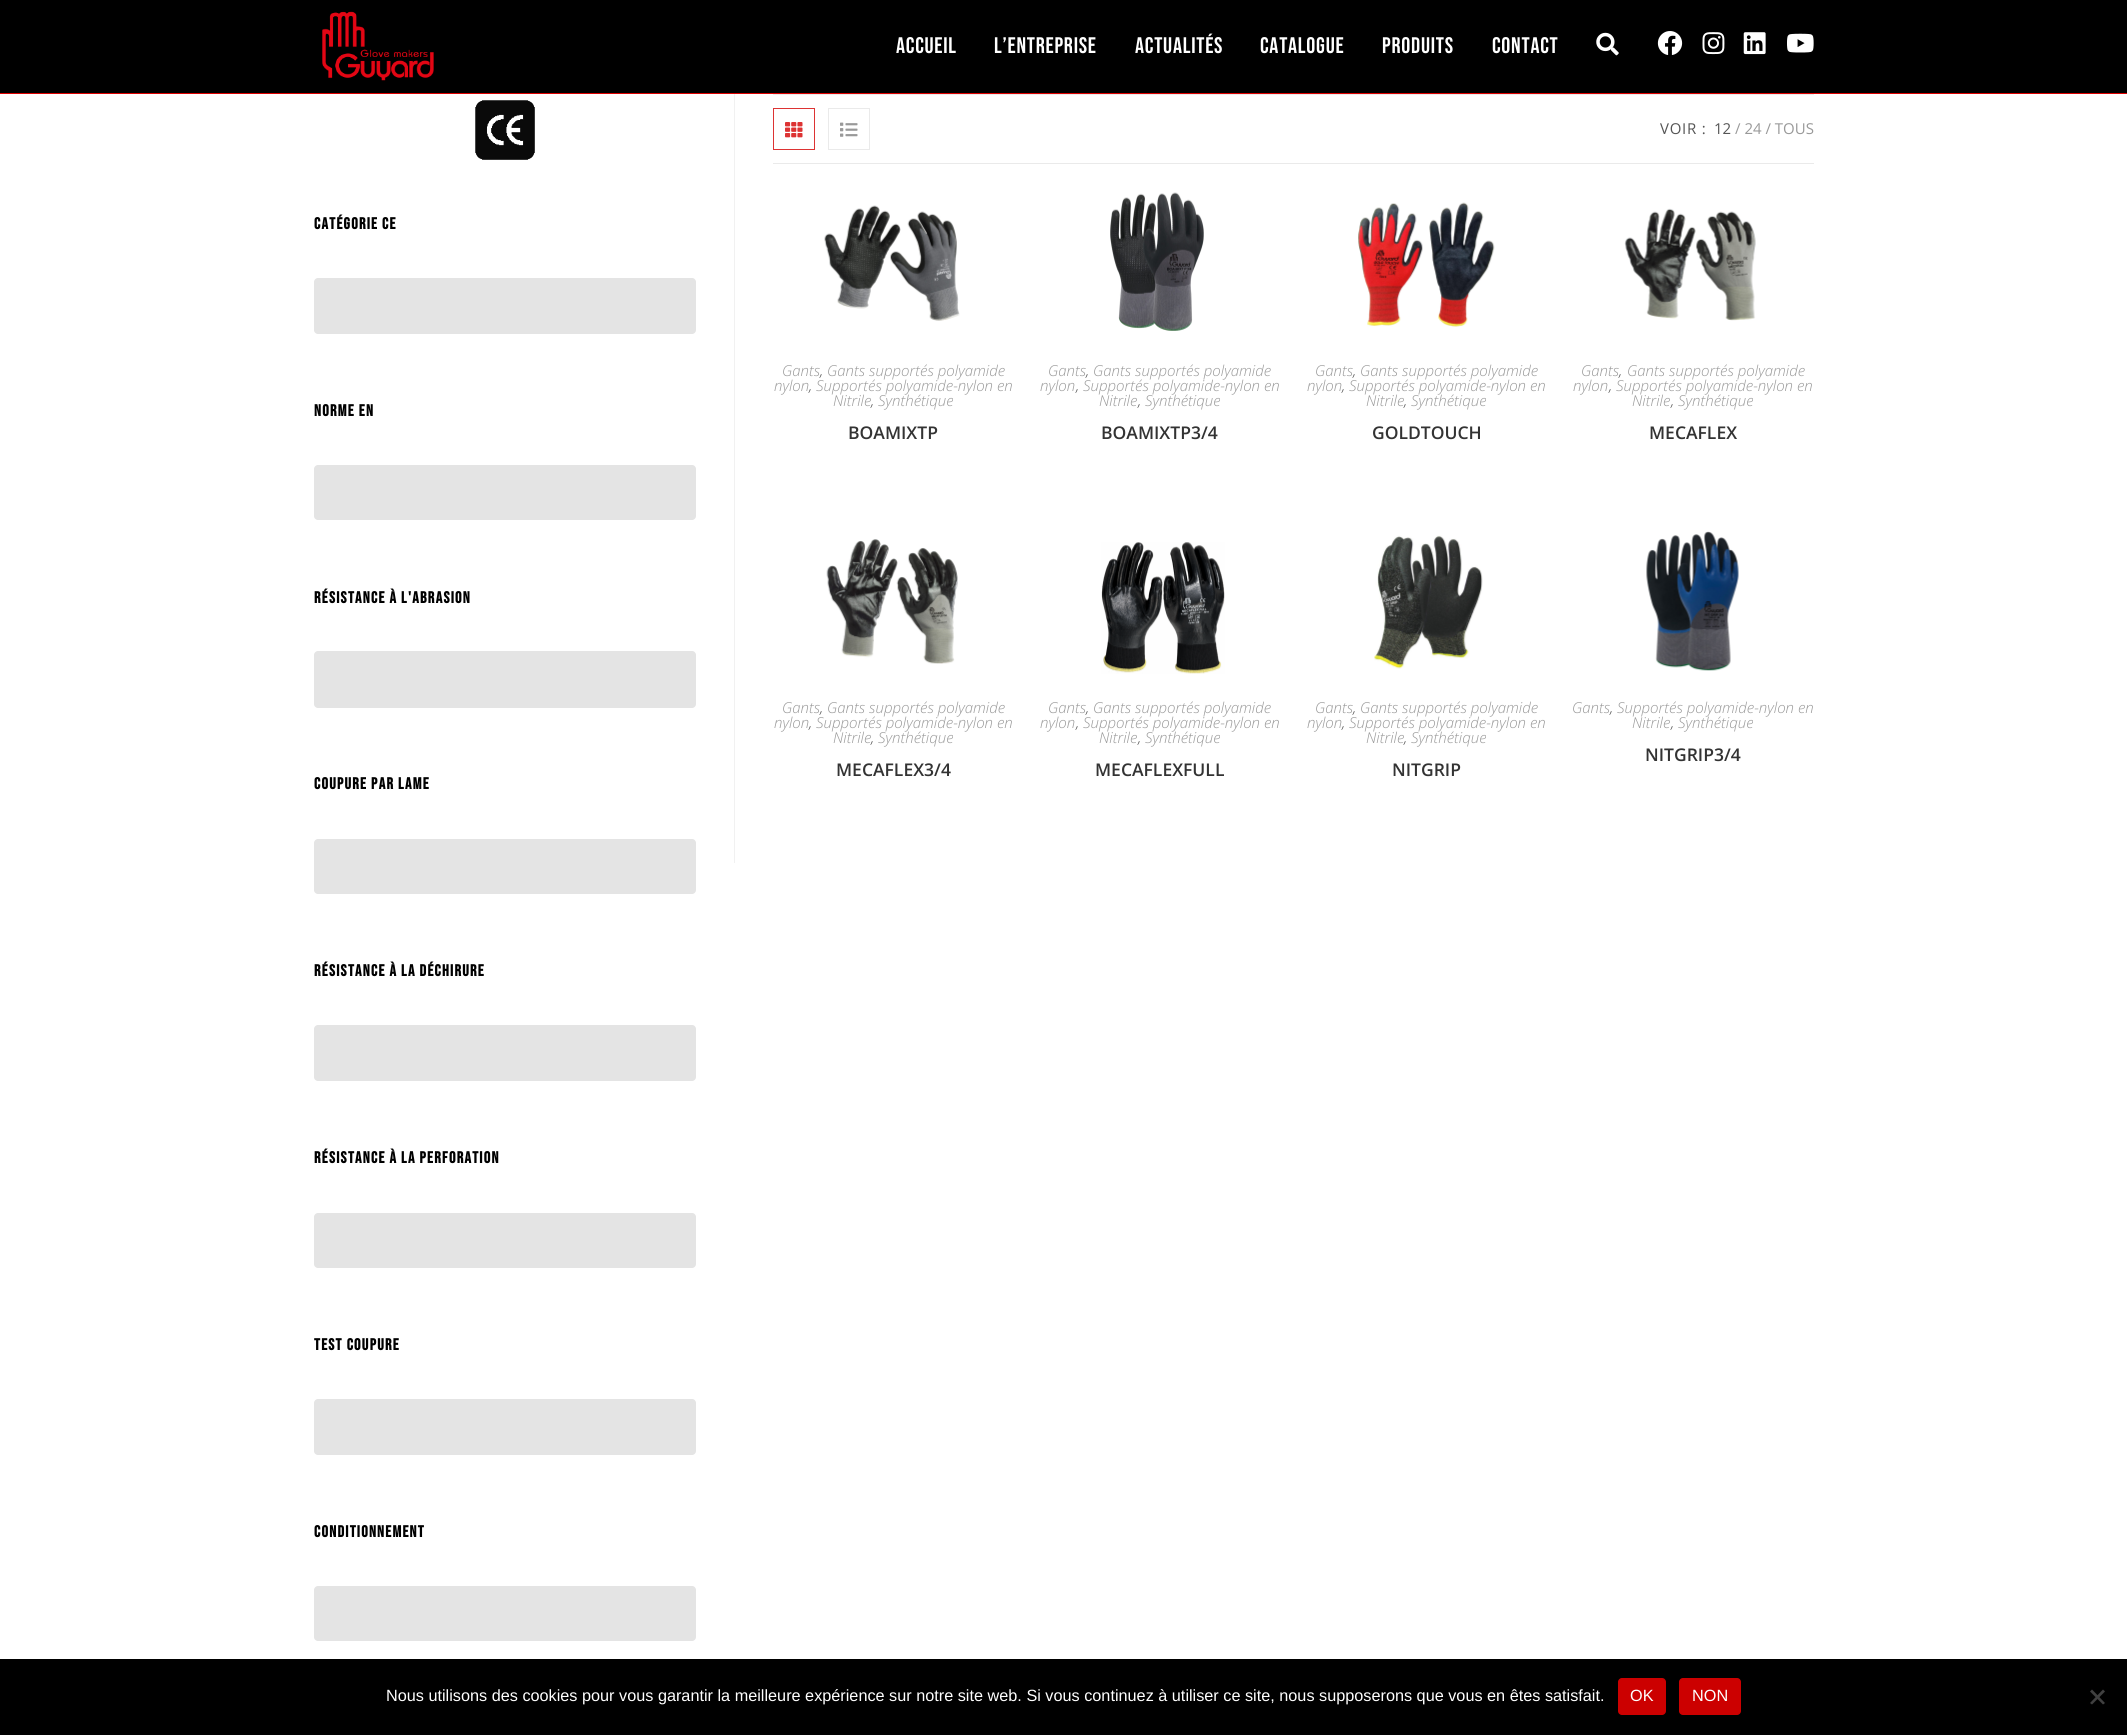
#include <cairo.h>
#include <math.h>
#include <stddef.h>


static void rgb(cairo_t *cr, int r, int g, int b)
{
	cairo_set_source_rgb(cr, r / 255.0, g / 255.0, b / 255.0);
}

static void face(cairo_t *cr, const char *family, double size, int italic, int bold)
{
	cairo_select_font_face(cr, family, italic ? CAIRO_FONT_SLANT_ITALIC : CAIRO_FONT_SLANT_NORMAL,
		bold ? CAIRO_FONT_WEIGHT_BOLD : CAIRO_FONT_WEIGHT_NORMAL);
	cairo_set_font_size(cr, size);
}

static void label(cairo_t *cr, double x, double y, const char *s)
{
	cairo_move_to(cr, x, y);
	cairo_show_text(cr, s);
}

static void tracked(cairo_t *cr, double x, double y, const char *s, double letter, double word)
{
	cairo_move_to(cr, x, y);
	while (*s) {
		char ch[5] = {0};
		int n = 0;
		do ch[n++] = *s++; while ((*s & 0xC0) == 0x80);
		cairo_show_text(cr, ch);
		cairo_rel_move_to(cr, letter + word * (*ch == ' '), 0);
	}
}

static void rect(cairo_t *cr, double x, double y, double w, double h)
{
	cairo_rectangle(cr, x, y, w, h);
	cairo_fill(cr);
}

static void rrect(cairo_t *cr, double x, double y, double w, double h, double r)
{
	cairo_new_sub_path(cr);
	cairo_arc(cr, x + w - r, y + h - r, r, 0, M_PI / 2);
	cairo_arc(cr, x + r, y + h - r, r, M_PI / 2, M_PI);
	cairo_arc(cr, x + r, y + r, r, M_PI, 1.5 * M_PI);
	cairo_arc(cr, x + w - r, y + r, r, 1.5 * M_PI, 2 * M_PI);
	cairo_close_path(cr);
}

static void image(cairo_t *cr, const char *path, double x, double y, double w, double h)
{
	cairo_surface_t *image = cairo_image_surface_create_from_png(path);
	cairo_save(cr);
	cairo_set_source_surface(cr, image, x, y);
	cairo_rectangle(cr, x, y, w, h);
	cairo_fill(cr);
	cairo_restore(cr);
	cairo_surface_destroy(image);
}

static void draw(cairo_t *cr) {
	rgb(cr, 255, 255, 255);
	cairo_paint(cr);
	rgb(cr, 0, 0, 0);
	rect(cr, 0, 0, 2127, 93);
	rgb(cr, 221, 0, 0);
	rect(cr, 0, 93, 2127, 1);
	image(cr, "image0.png", 322, 11, 112, 70);
	face(cr, "Bebas Neue", 22.5, 0, 0);
	rgb(cr, 255, 255, 255);
	tracked(cr, 896, 53, "Accueil", 0.75, 0);
	tracked(cr, 994, 53, "L’entreprise", 0.75, 0);
	tracked(cr, 1135, 53, "Actualités", 0.75, 0);
	tracked(cr, 1260, 53, "Catalogue", 0.75, 0);
	tracked(cr, 1382, 53, "Produits", 0.75, 0);
	tracked(cr, 1492, 53, "Contact", 0.75, 0);
	image(cr, "image1.png", 1596, 32, 23, 24);
	image(cr, "image2.png", 1657, 31, 26, 24);
	image(cr, "image3.png", 1702, 32, 23, 23);
	image(cr, "image4.png", 1743, 32, 23, 23);
	image(cr, "image5.png", 1787, 33, 27, 20);
	image(cr, "image6.png", 475, 100, 60, 60);
	face(cr, "Bebas Neue", 16.25, 0, 1);
	rgb(cr, 0, 0, 0);
	tracked(cr, 314, 229, "Catégorie CE", 1.25, 0);
	rgb(cr, 228, 228, 228);
	rrect(cr, 314, 278, 382, 56, 4);
	cairo_fill(cr);
	rgb(cr, 0, 0, 0);
	tracked(cr, 314, 416, "Norme EN", 1.25, 0);
	rgb(cr, 228, 228, 228);
	rrect(cr, 314, 465, 382, 55, 4);
	cairo_fill(cr);
	rgb(cr, 0, 0, 0);
	tracked(cr, 314, 603, "Résistance à l'abrasion", 1.25, 0);
	rgb(cr, 228, 228, 228);
	rrect(cr, 314, 651, 382, 57, 4);
	cairo_fill(cr);
	rgb(cr, 0, 0, 0);
	tracked(cr, 314, 789, "Coupure par Lame", 1.25, 0);
	rgb(cr, 228, 228, 228);
	rrect(cr, 314, 839, 382, 55, 4);
	cairo_fill(cr);
	rgb(cr, 0, 0, 0);
	tracked(cr, 314, 976, "Résistance à la déchirure", 1.25, 0);
	rgb(cr, 228, 228, 228);
	rrect(cr, 314, 1025, 382, 56, 4);
	cairo_fill(cr);
	rgb(cr, 0, 0, 0);
	tracked(cr, 314, 1163, "Résistance à la perforation", 1.25, 0);
	rgb(cr, 228, 228, 228);
	rrect(cr, 314, 1213, 382, 55, 4);
	cairo_fill(cr);
	rgb(cr, 0, 0, 0);
	tracked(cr, 314, 1350, "Test Coupure", 1.25, 0);
	rgb(cr, 228, 228, 228);
	rrect(cr, 314, 1399, 382, 56, 4);
	cairo_fill(cr);
	rgb(cr, 0, 0, 0);
	tracked(cr, 314, 1537, "Conditionnement", 1.25, 0);
	rgb(cr, 228, 228, 228);
	rrect(cr, 314, 1586, 382, 55, 4);
	cairo_fill(cr);
	rgb(cr, 241, 241, 241);
	rect(cr, 734, 94, 1, 769);
	rgb(cr, 234, 234, 234);
	rect(cr, 773, 94, 1041, 1);
	rect(cr, 773, 163, 1041, 1);
	cairo_rectangle(cr, 773.5, 108.5, 41, 41);
	rgb(cr, 221, 51, 51);
	cairo_set_line_width(cr, 1);
	cairo_stroke(cr);
	image(cr, "image7.png", 785, 122, 18, 16);
	cairo_rectangle(cr, 828.5, 108.5, 41, 41);
	rgb(cr, 234, 234, 234);
	cairo_stroke(cr);
	image(cr, "image8.png", 840, 122, 18, 15);
	face(cr, "Open Sans", 15, 0, 0);
	rgb(cr, 85, 85, 85);
	tracked(cr, 1660, 134, "VOIR :", 0.75, 0);
	label(cr, 1714, 134, "12");
	rgb(cr, 153, 153, 153);
	label(cr, 1735, 134, "/ 24 / TOUS");
	image(cr, "image9.png", 824, 205, 136, 116);
	face(cr, "Open Sans Light", 15, 1, 0);
	label(cr, 782, 376, "Gants");
	rgb(cr, 74, 74, 74);
	label(cr, 820, 376, ",");
	rgb(cr, 153, 153, 153);
	label(cr, 827, 376, "Gants supportés polyamide");
	label(cr, 774, 391, "nylon");
	rgb(cr, 74, 74, 74);
	label(cr, 809, 391, ",");
	rgb(cr, 153, 153, 153);
	label(cr, 816, 391, "Supportés polyamide-nylon en");
	label(cr, 833, 406, "Nitrile");
	rgb(cr, 74, 74, 74);
	label(cr, 871, 406, ",");
	rgb(cr, 153, 153, 153);
	label(cr, 878, 406, "Synthétique");
	face(cr, "Open Sans SemiBold", 17.5, 0, 0);
	rgb(cr, 51, 51, 51);
	label(cr, 848, 439, "BOAMIXTP");
	image(cr, "image10.png", 1110, 192, 94, 139);
	face(cr, "Open Sans Light", 15, 1, 0);
	rgb(cr, 153, 153, 153);
	label(cr, 1048, 376, "Gants");
	rgb(cr, 74, 74, 74);
	label(cr, 1086, 376, ",");
	rgb(cr, 153, 153, 153);
	label(cr, 1093, 376, "Gants supportés polyamide");
	label(cr, 1040, 391, "nylon");
	rgb(cr, 74, 74, 74);
	label(cr, 1076, 391, ",");
	rgb(cr, 153, 153, 153);
	label(cr, 1083, 391, "Supportés polyamide-nylon en");
	label(cr, 1099, 406, "Nitrile");
	rgb(cr, 74, 74, 74);
	label(cr, 1138, 406, ",");
	rgb(cr, 153, 153, 153);
	label(cr, 1145, 406, "Synthétique");
	face(cr, "Open Sans SemiBold", 17.5, 0, 0);
	rgb(cr, 51, 51, 51);
	label(cr, 1101, 439, "BOAMIXTP3/4");
	image(cr, "image11.png", 1358, 202, 137, 125);
	face(cr, "Open Sans Light", 15, 1, 0);
	rgb(cr, 153, 153, 153);
	label(cr, 1315, 376, "Gants");
	rgb(cr, 74, 74, 74);
	label(cr, 1353, 376, ",");
	rgb(cr, 153, 153, 153);
	label(cr, 1360, 376, "Gants supportés polyamide");
	label(cr, 1307, 391, "nylon");
	rgb(cr, 74, 74, 74);
	label(cr, 1342, 391, ",");
	rgb(cr, 153, 153, 153);
	label(cr, 1349, 391, "Supportés polyamide-nylon en");
	label(cr, 1366, 406, "Nitrile");
	rgb(cr, 74, 74, 74);
	label(cr, 1404, 406, ",");
	rgb(cr, 153, 153, 153);
	label(cr, 1411, 406, "Synthétique");
	face(cr, "Open Sans SemiBold", 17.5, 0, 0);
	rgb(cr, 51, 51, 51);
	label(cr, 1372, 439, "GOLDTOUCH");
	image(cr, "image12.png", 1624, 208, 132, 113);
	face(cr, "Open Sans Light", 15, 1, 0);
	rgb(cr, 153, 153, 153);
	label(cr, 1581, 376, "Gants");
	label(cr, 1627, 376, "Gants supportés polyamide");
	rgb(cr, 74, 74, 74);
	label(cr, 1619, 376, ",");
	rgb(cr, 153, 153, 153);
	label(cr, 1573, 391, "nylon");
	rgb(cr, 74, 74, 74);
	label(cr, 1609, 391, ",");
	rgb(cr, 153, 153, 153);
	label(cr, 1616, 391, "Supportés polyamide-nylon en");
	label(cr, 1632, 406, "Nitrile");
	rgb(cr, 74, 74, 74);
	label(cr, 1671, 406, ",");
	rgb(cr, 153, 153, 153);
	label(cr, 1678, 406, "Synthétique");
	face(cr, "Open Sans SemiBold", 17.5, 0, 0);
	rgb(cr, 51, 51, 51);
	label(cr, 1649, 439, "MECAFLEX");
	image(cr, "image13.png", 826, 539, 132, 125);
	face(cr, "Open Sans Light", 15, 1, 0);
	rgb(cr, 153, 153, 153);
	label(cr, 782, 713, "Gants");
	rgb(cr, 74, 74, 74);
	label(cr, 820, 713, ",");
	rgb(cr, 153, 153, 153);
	label(cr, 827, 713, "Gants supportés polyamide");
	label(cr, 774, 728, "nylon");
	rgb(cr, 74, 74, 74);
	label(cr, 809, 728, ",");
	rgb(cr, 153, 153, 153);
	label(cr, 816, 728, "Supportés polyamide-nylon en");
	label(cr, 833, 743, "Nitrile");
	rgb(cr, 74, 74, 74);
	label(cr, 871, 743, ",");
	rgb(cr, 153, 153, 153);
	label(cr, 878, 743, "Synthétique");
	face(cr, "Open Sans SemiBold", 17.5, 0, 0);
	rgb(cr, 51, 51, 51);
	label(cr, 836, 776, "MECAFLEX3/4");
	image(cr, "image14.png", 1101, 542, 124, 132);
	face(cr, "Open Sans Light", 15, 1, 0);
	rgb(cr, 153, 153, 153);
	label(cr, 1048, 713, "Gants");
	rgb(cr, 74, 74, 74);
	label(cr, 1086, 713, ",");
	rgb(cr, 153, 153, 153);
	label(cr, 1093, 713, "Gants supportés polyamide");
	label(cr, 1040, 728, "nylon");
	rgb(cr, 74, 74, 74);
	label(cr, 1076, 728, ",");
	rgb(cr, 153, 153, 153);
	label(cr, 1083, 728, "Supportés polyamide-nylon en");
	label(cr, 1099, 743, "Nitrile");
	rgb(cr, 74, 74, 74);
	label(cr, 1138, 743, ",");
	rgb(cr, 153, 153, 153);
	label(cr, 1145, 743, "Synthétique");
	face(cr, "Open Sans SemiBold", 17.5, 0, 0);
	rgb(cr, 51, 51, 51);
	label(cr, 1095, 776, "MECAFLEXFULL");
	image(cr, "image15.png", 1374, 535, 109, 134);
	face(cr, "Open Sans Light", 15, 1, 0);
	rgb(cr, 153, 153, 153);
	label(cr, 1315, 713, "Gants");
	rgb(cr, 74, 74, 74);
	label(cr, 1353, 713, ",");
	rgb(cr, 153, 153, 153);
	label(cr, 1360, 713, "Gants supportés polyamide");
	label(cr, 1307, 728, "nylon");
	rgb(cr, 74, 74, 74);
	label(cr, 1342, 728, ",");
	rgb(cr, 153, 153, 153);
	label(cr, 1349, 728, "Supportés polyamide-nylon en");
	label(cr, 1366, 743, "Nitrile");
	rgb(cr, 74, 74, 74);
	label(cr, 1404, 743, ",");
	rgb(cr, 153, 153, 153);
	label(cr, 1411, 743, "Synthétique");
	face(cr, "Open Sans SemiBold", 17.5, 0, 0);
	rgb(cr, 51, 51, 51);
	label(cr, 1392, 776, "NITGRIP");
	image(cr, "image16.png", 1646, 531, 93, 140);
	face(cr, "Open Sans Light", 15, 1, 0);
	rgb(cr, 153, 153, 153);
	label(cr, 1572, 713, "Gants");
	rgb(cr, 74, 74, 74);
	label(cr, 1610, 713, ",");
	rgb(cr, 153, 153, 153);
	label(cr, 1617, 713, "Supportés polyamide-nylon en");
	label(cr, 1632, 728, "Nitrile");
	rgb(cr, 74, 74, 74);
	label(cr, 1671, 728, ",");
	rgb(cr, 153, 153, 153);
	label(cr, 1678, 728, "Synthétique");
	face(cr, "Open Sans SemiBold", 17.5, 0, 0);
	rgb(cr, 51, 51, 51);
	label(cr, 1645, 761, "NITGRIP3/4");
	rgb(cr, 0, 0, 0);
	rect(cr, 0, 1659, 2127, 76);
	face(cr, "Liberation Sans", 16.25, 0, 0);
	rgb(cr, 255, 255, 255);
	label(cr, 386, 1701, "Nous utilisons des cookies pour vous garantir la meilleure expérience sur notre site web. Si vous continuez à utiliser ce site, nous supposerons que vous en êtes satisfait.");
	rgb(cr, 204, 0, 0);
	rrect(cr, 1618, 1678, 48, 37, 4);
	cairo_fill(cr);
	rgb(cr, 255, 255, 255);
	label(cr, 1630, 1701, "OK");
	rgb(cr, 204, 0, 0);
	rrect(cr, 1679, 1678, 62, 37, 4);
	cairo_fill(cr);
	rgb(cr, 255, 255, 255);
	label(cr, 1692, 1701, "NON");
	rgb(cr, 64, 64, 64);
	cairo_new_path(cr);
	cairo_move_to(cr, 2103, 1689.5);
	cairo_line_to(cr, 2105, 1691.5);
	cairo_line_to(cr, 2092, 1704.5);
	cairo_line_to(cr, 2090, 1703);
	cairo_close_path(cr);
	cairo_fill(cr);
	cairo_new_path(cr);
	cairo_move_to(cr, 2090, 1691.5);
	cairo_line_to(cr, 2092, 1689.5);
	cairo_line_to(cr, 2105, 1703);
	cairo_line_to(cr, 2103, 1704.5);
	cairo_close_path(cr);
	cairo_fill(cr);
}

int main(void) {
	cairo_surface_t *surface = cairo_image_surface_create(CAIRO_FORMAT_RGB24, 2127, 1735);
	cairo_t *cr = cairo_create(surface);
	cairo_font_options_t *options = cairo_font_options_create();
	cairo_font_options_set_hint_metrics(options, CAIRO_HINT_METRICS_OFF);
	cairo_font_options_set_hint_style(options, CAIRO_HINT_STYLE_NONE);
	cairo_set_font_options(cr, options);
	cairo_set_miter_limit(cr, 4);
	draw(cr);
	cairo_surface_write_to_png(surface, "render.png");
	cairo_font_options_destroy(options);
	cairo_destroy(cr);
	cairo_surface_destroy(surface);
	return 0;
}
